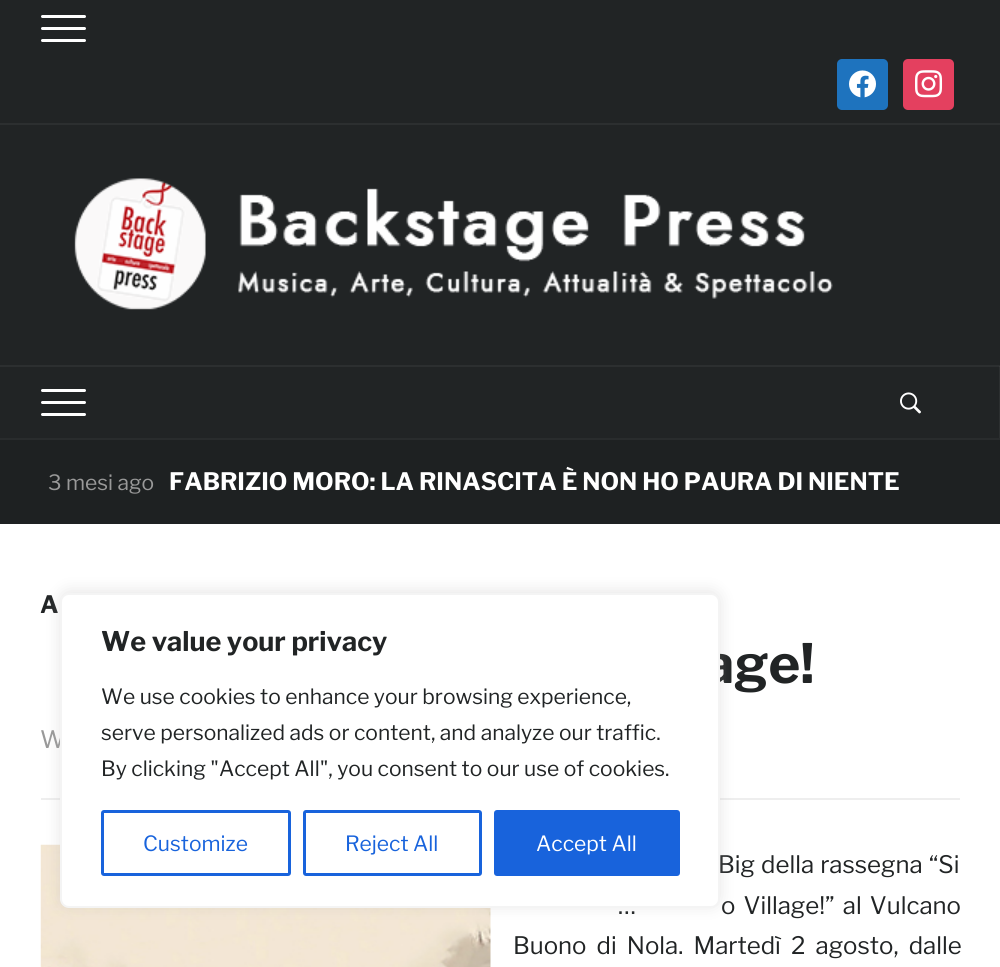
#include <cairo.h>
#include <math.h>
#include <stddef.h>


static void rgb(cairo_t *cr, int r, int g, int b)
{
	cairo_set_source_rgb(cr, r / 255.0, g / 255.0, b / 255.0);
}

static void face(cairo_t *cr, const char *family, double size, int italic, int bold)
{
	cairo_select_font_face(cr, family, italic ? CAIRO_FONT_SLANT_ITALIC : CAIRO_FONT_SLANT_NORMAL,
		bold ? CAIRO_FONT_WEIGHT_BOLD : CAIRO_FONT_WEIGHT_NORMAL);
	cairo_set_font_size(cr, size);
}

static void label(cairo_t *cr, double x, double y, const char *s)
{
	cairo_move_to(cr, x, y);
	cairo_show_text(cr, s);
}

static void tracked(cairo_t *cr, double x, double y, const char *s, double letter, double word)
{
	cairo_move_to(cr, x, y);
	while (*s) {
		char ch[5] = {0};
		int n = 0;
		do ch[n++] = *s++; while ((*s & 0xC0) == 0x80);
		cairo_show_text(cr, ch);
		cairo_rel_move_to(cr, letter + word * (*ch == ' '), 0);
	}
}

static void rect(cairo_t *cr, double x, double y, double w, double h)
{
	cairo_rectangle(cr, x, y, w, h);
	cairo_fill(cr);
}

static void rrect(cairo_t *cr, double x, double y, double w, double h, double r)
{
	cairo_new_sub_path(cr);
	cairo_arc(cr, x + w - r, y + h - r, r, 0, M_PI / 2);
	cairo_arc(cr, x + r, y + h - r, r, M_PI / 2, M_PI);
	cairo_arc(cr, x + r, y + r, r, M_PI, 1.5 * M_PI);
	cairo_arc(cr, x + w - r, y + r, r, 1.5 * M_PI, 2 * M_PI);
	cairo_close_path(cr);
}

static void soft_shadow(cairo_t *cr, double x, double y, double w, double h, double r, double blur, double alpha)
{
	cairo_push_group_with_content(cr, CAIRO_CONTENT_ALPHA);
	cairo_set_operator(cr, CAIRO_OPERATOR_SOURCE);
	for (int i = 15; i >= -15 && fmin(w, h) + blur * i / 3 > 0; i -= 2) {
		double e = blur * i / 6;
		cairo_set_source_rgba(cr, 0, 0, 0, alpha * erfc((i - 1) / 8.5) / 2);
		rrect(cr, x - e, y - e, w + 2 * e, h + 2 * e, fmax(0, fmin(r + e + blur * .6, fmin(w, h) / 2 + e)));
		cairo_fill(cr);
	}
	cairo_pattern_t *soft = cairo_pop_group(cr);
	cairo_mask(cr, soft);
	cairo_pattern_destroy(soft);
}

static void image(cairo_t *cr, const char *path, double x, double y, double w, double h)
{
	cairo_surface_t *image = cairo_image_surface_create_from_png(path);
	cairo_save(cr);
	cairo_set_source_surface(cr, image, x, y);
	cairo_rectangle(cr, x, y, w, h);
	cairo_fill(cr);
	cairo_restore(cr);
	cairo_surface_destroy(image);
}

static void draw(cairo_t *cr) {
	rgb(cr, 255, 255, 255);
	cairo_paint(cr);
	rgb(cr, 33, 36, 37);
	rect(cr, 0, 0, 1000, 438);
	rgb(cr, 44, 47, 48);
	rect(cr, 999, 366, 1, 72);
	rect(cr, 0, 123, 1000, 2);
	rgb(cr, 255, 255, 255);
	rrect(cr, 41, 15, 45, 3, 1.5);
	cairo_fill(cr);
	rrect(cr, 41, 27, 45, 3, 1.5);
	cairo_fill(cr);
	rrect(cr, 41, 39, 45, 3, 1.5);
	cairo_fill(cr);
	rgb(cr, 30, 115, 190);
	rrect(cr, 837, 59, 51, 51, 5);
	cairo_fill(cr);
	image(cr, "image0.png", 849, 70, 27, 28);
	rgb(cr, 228, 64, 95);
	rrect(cr, 903, 59, 51, 51, 5);
	cairo_fill(cr);
	image(cr, "image1.png", 915, 70, 28, 28);
	image(cr, "image2.png", 74, 178, 759, 132);
	rgb(cr, 44, 47, 48);
	rect(cr, 0, 365, 1000, 2);
	rgb(cr, 55, 57, 58);
	rect(cr, 999, 366, 1, 1);
	rgb(cr, 255, 255, 255);
	rrect(cr, 41, 389, 45, 3, 1.5);
	cairo_fill(cr);
	rrect(cr, 41, 401, 45, 3, 1.5);
	cairo_fill(cr);
	rrect(cr, 41, 413, 45, 3, 1.5);
	cairo_fill(cr);
	image(cr, "image3.png", 900, 392, 21, 22);
	rgb(cr, 30, 33, 34);
	rect(cr, 0, 440, 1000, 84);
	rgb(cr, 41, 44, 45);
	rect(cr, 0, 438, 1000, 2);
	face(cr, "Libre Franklin", 21, 0, 0);
	rgb(cr, 153, 153, 153);
	label(cr, 48, 490, "3 mesi ago");
	face(cr, "Libre Franklin", 24, 0, 1);
	rgb(cr, 255, 255, 255);
	label(cr, 169, 490, "FABRIZIO MORO: LA RINASCITA È NON HO PAURA DI NIENTE");
	rgb(cr, 33, 36, 37);
	label(cr, 40, 613, "A");
	face(cr, "Libre Franklin", 54, 0, 1);
	label(cr, 704, 683, "age!");
	rgb(cr, 238, 238, 238);
	rect(cr, 41, 798, 919, 2);
	face(cr, "Libre Franklin", 24, 0, 0);
	rgb(cr, 153, 153, 153);
	label(cr, 40, 748, "W");
	image(cr, "image4.png", 40, 844, 451, 123);
	rgb(cr, 33, 36, 37);
	tracked(cr, 718, 873, "Big della rassegna “Si", 0, 1);
	tracked(cr, 618, 914, "…", 0, 3);
	tracked(cr, 721, 914, "o Village!” al Vulcano", 0, 3);
	tracked(cr, 513, 954, "Buono di Nola. Martedì 2 agosto, dalle", 0, 5);
	rgb(cr, 172, 171, 171);
	soft_shadow(cr, 60, 591, 660, 315, 9, 7.5, 0.3);
	rgb(cr, 255, 255, 255);
	rrect(cr, 61, 594, 658, 313, 8);
	cairo_fill_preserve(cr);
	rgb(cr, 244, 244, 244);
	cairo_stroke(cr);
	face(cr, "Libre Franklin", 27, 0, 1);
	rgb(cr, 33, 36, 37);
	label(cr, 101, 651, "We value your privacy");
	face(cr, "Libre Franklin", 21, 0, 0);
	label(cr, 101, 704, "We use cookies to enhance your browsing experience,");
	label(cr, 101, 740, "serve personalized ads or content, and analyze our traffic.");
	label(cr, 101, 776, "By clicking \"Accept All\", you consent to our use of cookies.");
	rrect(cr, 102.5, 811.5, 187, 63, 1.5);
	rgb(cr, 24, 99, 220);
	cairo_set_line_width(cr, 3);
	cairo_stroke(cr);
	label(cr, 143, 851, "Customize");
	rrect(cr, 304.5, 811.5, 176, 63, 1.5);
	cairo_stroke(cr);
	label(cr, 345, 851, "Reject All");
	rrect(cr, 495.5, 811.5, 183, 63, 1.5);
	cairo_fill_preserve(cr);
	cairo_stroke(cr);
	rgb(cr, 255, 255, 255);
	label(cr, 536, 851, "Accept All");
}

int main(void) {
	cairo_surface_t *surface = cairo_image_surface_create(CAIRO_FORMAT_RGB24, 1000, 967);
	cairo_t *cr = cairo_create(surface);
	cairo_font_options_t *options = cairo_font_options_create();
	cairo_font_options_set_hint_metrics(options, CAIRO_HINT_METRICS_OFF);
	cairo_font_options_set_hint_style(options, CAIRO_HINT_STYLE_NONE);
	cairo_set_font_options(cr, options);
	cairo_set_miter_limit(cr, 4);
	draw(cr);
	cairo_surface_write_to_png(surface, "render.png");
	cairo_font_options_destroy(options);
	cairo_destroy(cr);
	cairo_surface_destroy(surface);
	return 0;
}
